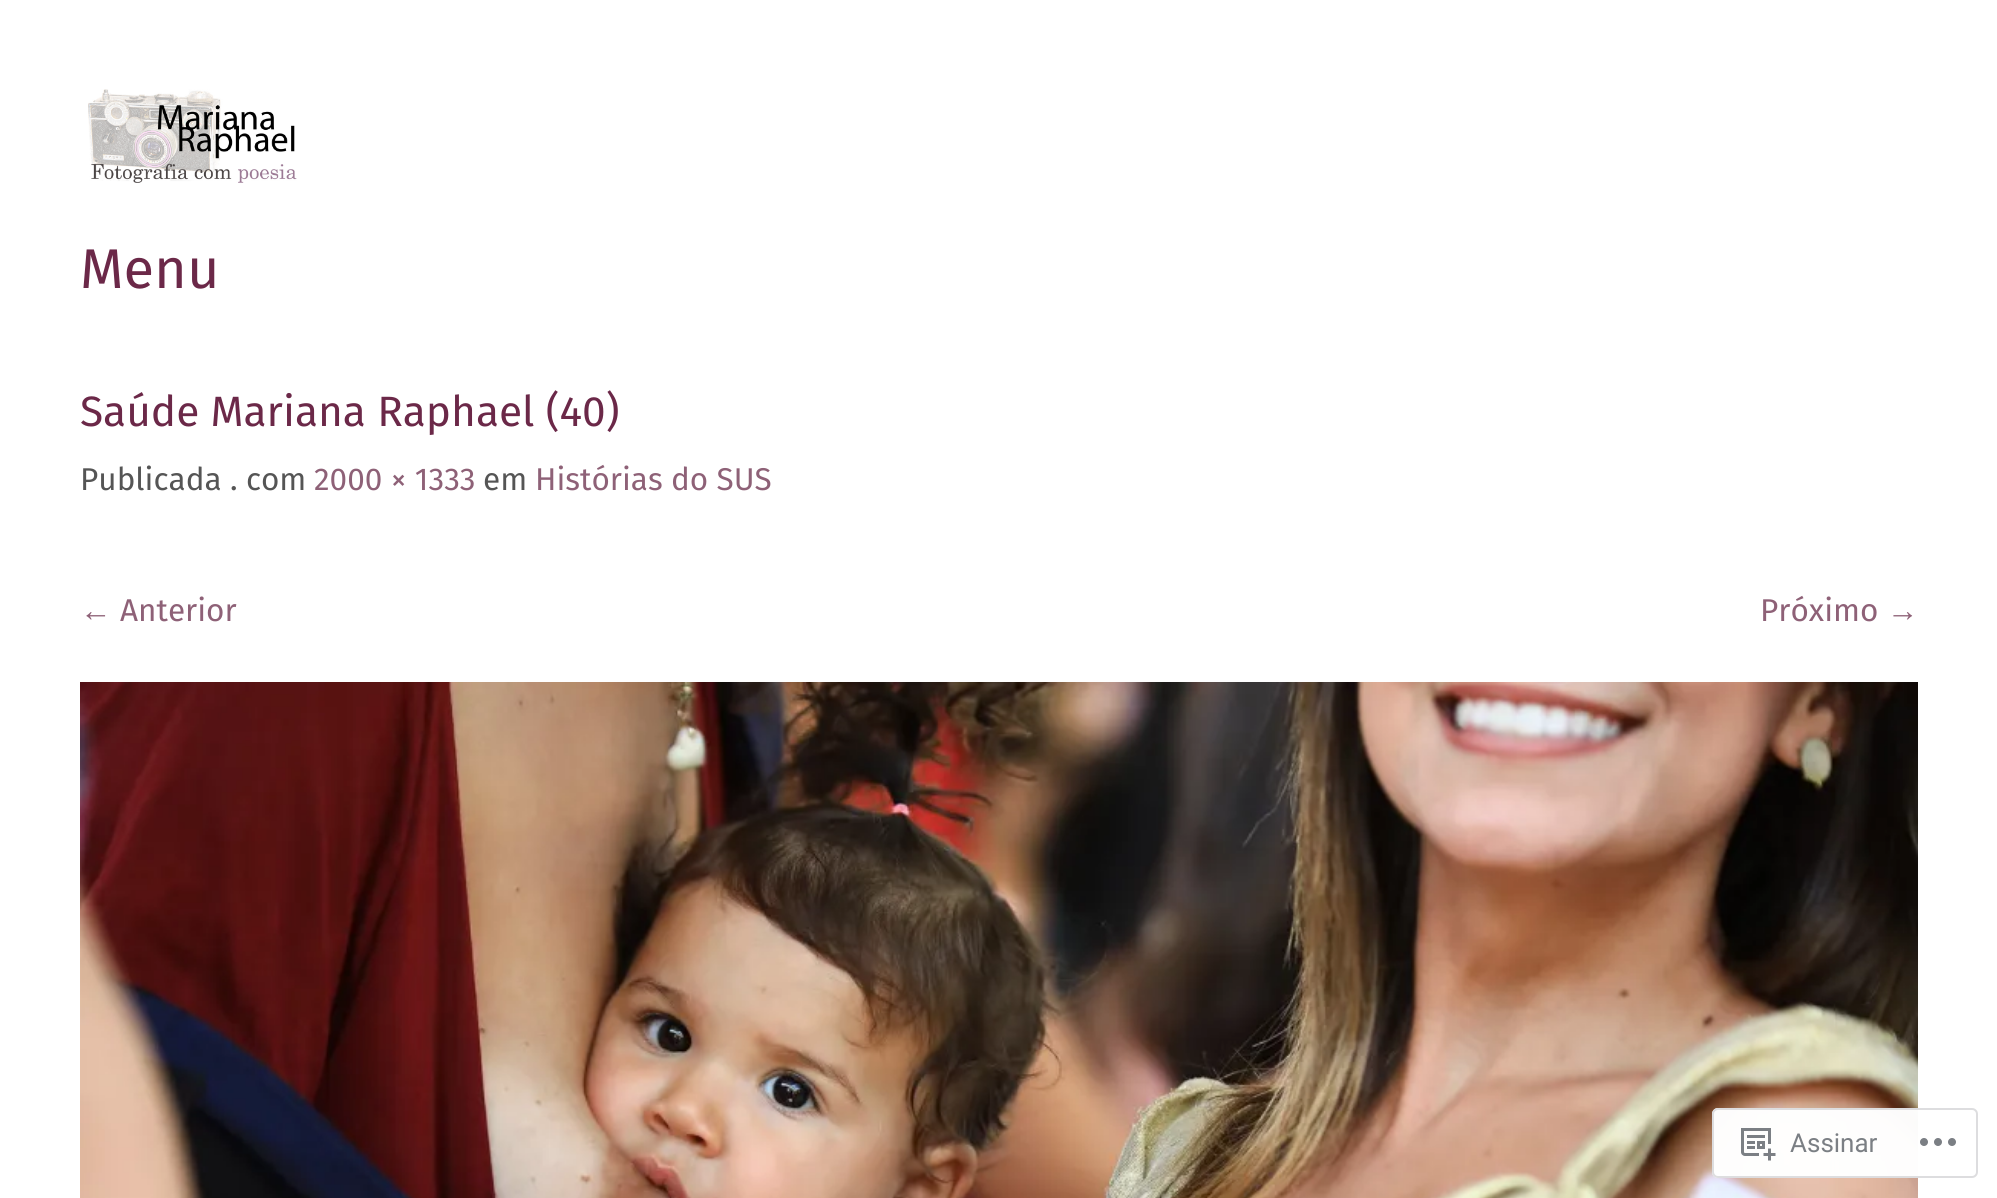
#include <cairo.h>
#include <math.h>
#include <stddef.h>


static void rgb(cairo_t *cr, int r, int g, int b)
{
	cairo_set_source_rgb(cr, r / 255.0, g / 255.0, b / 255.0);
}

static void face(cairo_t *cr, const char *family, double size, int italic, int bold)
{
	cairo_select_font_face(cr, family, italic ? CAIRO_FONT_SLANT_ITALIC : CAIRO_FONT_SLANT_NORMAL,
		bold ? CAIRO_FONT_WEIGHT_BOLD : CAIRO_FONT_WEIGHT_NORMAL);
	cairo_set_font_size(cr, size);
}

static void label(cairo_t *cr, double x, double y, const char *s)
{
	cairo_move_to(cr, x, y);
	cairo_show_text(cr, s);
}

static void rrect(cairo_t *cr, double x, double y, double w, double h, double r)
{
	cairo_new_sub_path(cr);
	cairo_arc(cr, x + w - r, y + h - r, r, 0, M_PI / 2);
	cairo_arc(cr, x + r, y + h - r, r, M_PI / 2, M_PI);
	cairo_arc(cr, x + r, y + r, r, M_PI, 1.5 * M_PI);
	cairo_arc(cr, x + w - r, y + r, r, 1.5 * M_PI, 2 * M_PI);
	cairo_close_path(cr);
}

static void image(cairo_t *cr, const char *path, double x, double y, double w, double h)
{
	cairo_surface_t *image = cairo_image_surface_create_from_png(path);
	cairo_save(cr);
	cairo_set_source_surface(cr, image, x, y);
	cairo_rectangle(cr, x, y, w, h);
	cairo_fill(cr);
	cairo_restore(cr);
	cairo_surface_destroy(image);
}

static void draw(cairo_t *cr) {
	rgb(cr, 255, 255, 255);
	cairo_paint(cr);
	image(cr, "image0.png", 88, 89, 209, 94);
	face(cr, "Fira Sans", 56, 0, 0);
	rgb(cr, 107, 40, 72);
	label(cr, 80, 288, "Menu");
	face(cr, "Fira Sans", 42.4, 0, 0);
	label(cr, 80, 426, "Saúde Mariana Raphael (40)");
	face(cr, "Fira Sans", 31.5, 0, 0);
	rgb(cr, 85, 85, 85);
	label(cr, 80, 490, "Publicada . com");
	rgb(cr, 142, 97, 119);
	label(cr, 314, 490, "2000 × 1333");
	rgb(cr, 85, 85, 85);
	label(cr, 483, 490, "em");
	rgb(cr, 142, 97, 119);
	label(cr, 535, 490, "Histórias do SUS");
	face(cr, "Liberation Sans", 31.5, 0, 0);
	label(cr, 80, 621, "←");
	face(cr, "Fira Sans", 31.5, 0, 0);
	label(cr, 120, 621, "Anterior");
	label(cr, 1760, 621, "Próximo");
	face(cr, "Liberation Sans", 31.5, 0, 0);
	label(cr, 1887, 621, "→");
	image(cr, "image1.png", 80, 682, 1838, 516);
	cairo_set_source_rgba(cr, 1, 1, 1, 0.98);
	rrect(cr, 1712, 1108, 266, 70, 6);
	cairo_fill(cr);
	rrect(cr, 1713, 1109, 264, 68, 5);
	cairo_set_source_rgba(cr, 0.863, 0.863, 0.871, 0.98);
	cairo_stroke(cr);
	image(cr, "image2.png", 1741, 1128, 35, 33);
	face(cr, "Roboto", 26, 0, 0);
	rgb(cr, 123, 127, 132);
	label(cr, 1790, 1152, "Assinar");
	image(cr, "image3.png", 1920, 1138, 36, 8);
}

int main(void) {
	cairo_surface_t *surface = cairo_image_surface_create(CAIRO_FORMAT_RGB24, 1997, 1198);
	cairo_t *cr = cairo_create(surface);
	cairo_font_options_t *options = cairo_font_options_create();
	cairo_font_options_set_hint_metrics(options, CAIRO_HINT_METRICS_OFF);
	cairo_font_options_set_hint_style(options, CAIRO_HINT_STYLE_NONE);
	cairo_set_font_options(cr, options);
	cairo_set_miter_limit(cr, 4);
	draw(cr);
	cairo_surface_write_to_png(surface, "render.png");
	cairo_font_options_destroy(options);
	cairo_destroy(cr);
	cairo_surface_destroy(surface);
	return 0;
}
